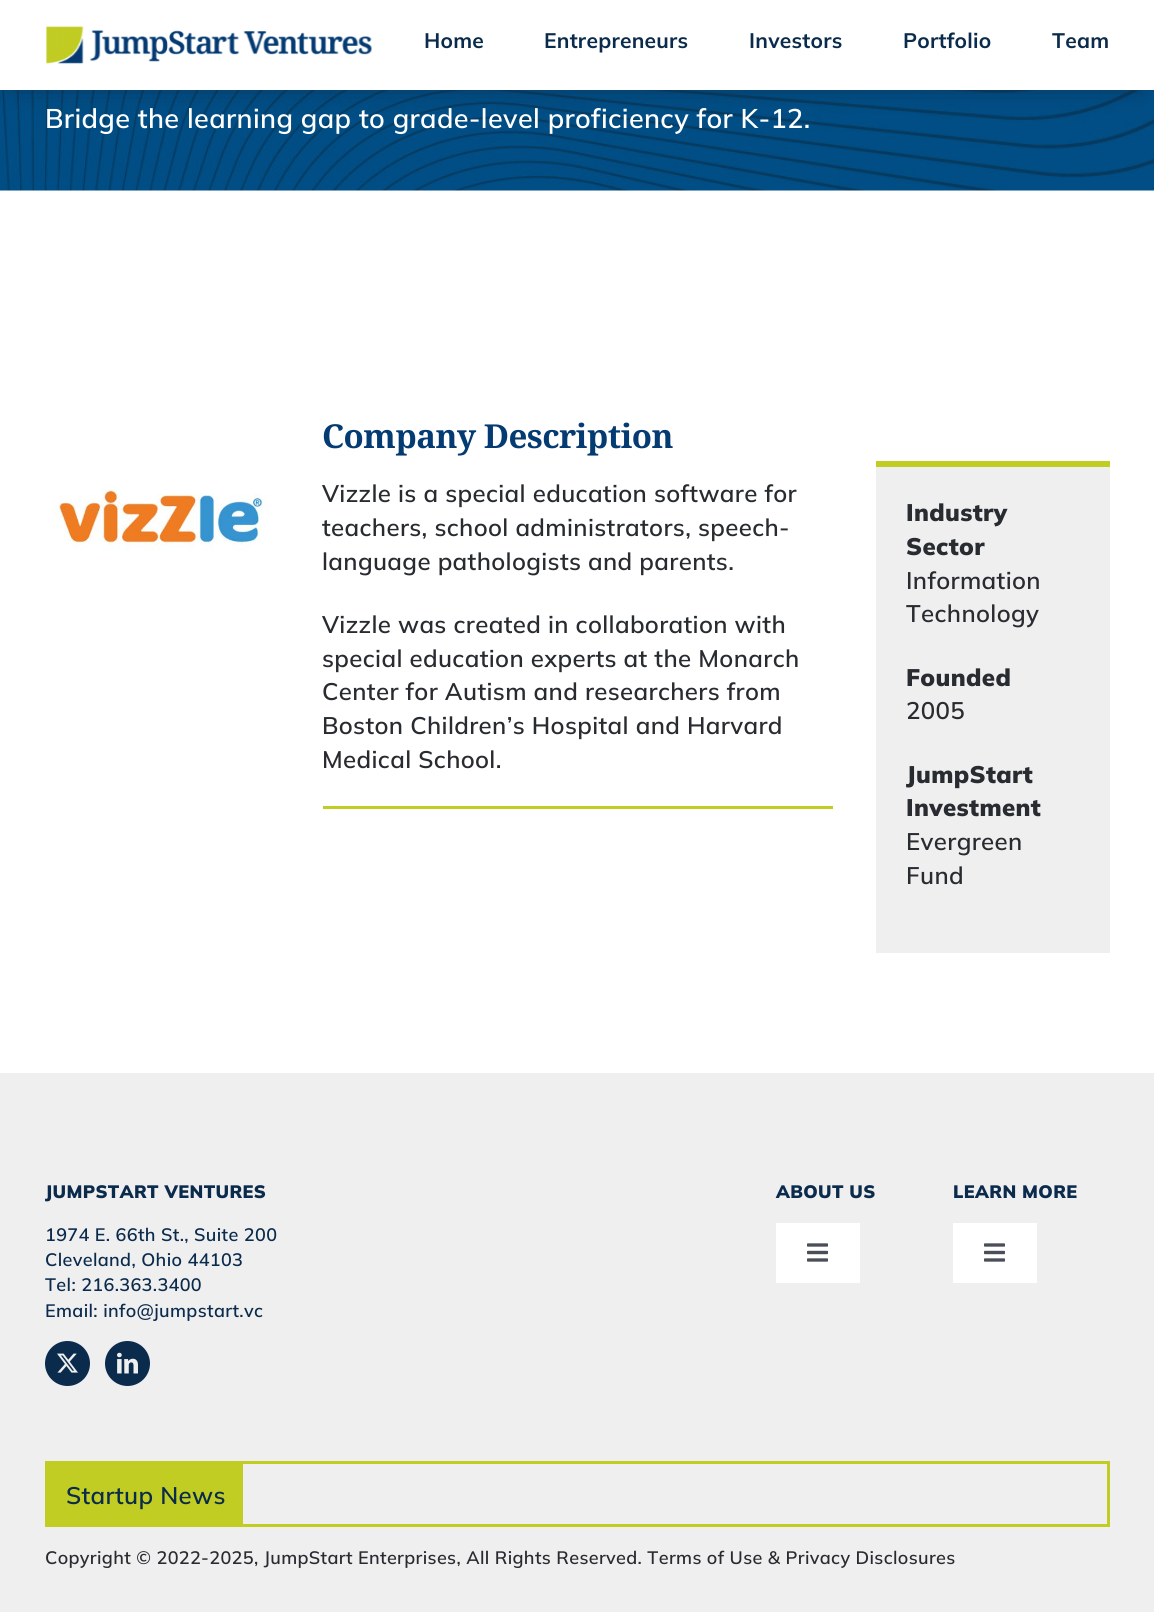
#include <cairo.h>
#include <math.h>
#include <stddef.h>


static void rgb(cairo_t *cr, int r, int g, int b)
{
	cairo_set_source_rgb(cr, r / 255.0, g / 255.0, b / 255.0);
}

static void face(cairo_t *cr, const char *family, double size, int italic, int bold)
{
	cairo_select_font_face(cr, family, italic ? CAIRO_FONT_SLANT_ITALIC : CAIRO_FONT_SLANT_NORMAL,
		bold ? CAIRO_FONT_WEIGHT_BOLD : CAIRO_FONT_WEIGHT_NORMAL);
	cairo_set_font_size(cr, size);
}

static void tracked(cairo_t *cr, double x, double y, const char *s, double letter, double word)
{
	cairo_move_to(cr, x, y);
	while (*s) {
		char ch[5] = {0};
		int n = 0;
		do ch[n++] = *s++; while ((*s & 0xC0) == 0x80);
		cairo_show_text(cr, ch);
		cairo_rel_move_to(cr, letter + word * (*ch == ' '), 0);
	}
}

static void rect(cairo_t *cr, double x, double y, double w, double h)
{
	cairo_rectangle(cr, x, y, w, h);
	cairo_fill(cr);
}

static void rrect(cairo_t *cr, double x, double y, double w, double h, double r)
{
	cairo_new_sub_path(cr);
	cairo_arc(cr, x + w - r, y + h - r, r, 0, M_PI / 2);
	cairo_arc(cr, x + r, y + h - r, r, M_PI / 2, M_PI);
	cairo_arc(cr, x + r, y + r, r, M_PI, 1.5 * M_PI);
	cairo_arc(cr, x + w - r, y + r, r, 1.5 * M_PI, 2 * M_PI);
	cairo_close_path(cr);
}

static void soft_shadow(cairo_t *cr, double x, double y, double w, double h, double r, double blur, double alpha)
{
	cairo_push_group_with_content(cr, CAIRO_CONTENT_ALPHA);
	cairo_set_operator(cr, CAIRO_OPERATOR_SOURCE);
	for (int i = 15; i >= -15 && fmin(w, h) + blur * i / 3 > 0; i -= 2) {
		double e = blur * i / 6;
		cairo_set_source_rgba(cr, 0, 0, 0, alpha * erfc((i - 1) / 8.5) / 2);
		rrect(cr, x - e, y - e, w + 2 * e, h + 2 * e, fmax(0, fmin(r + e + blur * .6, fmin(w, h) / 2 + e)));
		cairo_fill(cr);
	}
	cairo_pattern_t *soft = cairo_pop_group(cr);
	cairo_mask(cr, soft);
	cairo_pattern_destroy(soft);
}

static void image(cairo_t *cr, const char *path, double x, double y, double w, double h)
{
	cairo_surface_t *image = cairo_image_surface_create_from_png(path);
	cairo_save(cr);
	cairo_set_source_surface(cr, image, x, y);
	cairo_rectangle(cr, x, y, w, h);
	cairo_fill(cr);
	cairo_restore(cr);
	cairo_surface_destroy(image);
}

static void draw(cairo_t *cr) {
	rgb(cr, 255, 255, 255);
	cairo_paint(cr);
	image(cr, "image1.png", 0, 90, 1154, 101);
	rgb(cr, 10, 43, 76);
	soft_shadow(cr, 15, 23, 1125, 60, 0, 13.5, 1);
	rgb(cr, 255, 255, 255);
	rect(cr, 0, 0, 1154, 90);
	image(cr, "image0.png", 45, 26, 327, 38);
	face(cr, "Mulish", 21, 0, 1);
	rgb(cr, 10, 43, 76);
	tracked(cr, 424, 48, "Home", 0.25, 0);
	tracked(cr, 544, 48, "Entrepreneurs", 0.25, 0);
	tracked(cr, 749, 48, "Investors", 0.25, 0);
	tracked(cr, 903, 48, "Portfolio", 0.25, 0);
	tracked(cr, 1052, 48, "Team", 0.25, 0);
	face(cr, "Mulish SemiBold", 27, 0, 0);
	rgb(cr, 255, 255, 255);
	tracked(cr, 45, 128, "Bridge the learning gap to grade-level proficiency for K-12.", 0.36, 0);
	image(cr, "image2.png", 54, 485, 216, 66);
	face(cr, "Noto Serif", 33, 0, 1);
	rgb(cr, 4, 59, 114);
	tracked(cr, 322, 448, "Company Description", -0.5, 0);
	face(cr, "Mulish SemiBold", 24, 0, 0);
	rgb(cr, 40, 43, 48);
	tracked(cr, 322, 502, "Vizzle is a special education software for", 0.36, 0);
	tracked(cr, 322, 536, "teachers, school administrators, speech-", 0.36, 0);
	tracked(cr, 322, 570, "language pathologists and parents.", 0.36, 0);
	tracked(cr, 322, 633, "Vizzle was created in collaboration with", 0.36, 0);
	tracked(cr, 322, 667, "special education experts at the Monarch", 0.36, 0);
	tracked(cr, 322, 700, "Center for Autism and researchers from", 0.36, 0);
	tracked(cr, 322, 734, "Boston Children’s Hospital and Harvard", 0.36, 0);
	tracked(cr, 322, 768, "Medical School.", 0.36, 0);
	rgb(cr, 193, 205, 35);
	rect(cr, 323, 806, 510, 3);
	rgb(cr, 239, 239, 239);
	rect(cr, 876, 467, 234, 486);
	rgb(cr, 193, 205, 35);
	rect(cr, 876, 461, 234, 6);
	face(cr, "Mulish Black", 24, 0, 0);
	rgb(cr, 40, 43, 48);
	tracked(cr, 906, 521, "Industry", 0.36, 0);
	tracked(cr, 906, 555, "Sector", 0.36, 0);
	face(cr, "Mulish SemiBold", 24, 0, 0);
	tracked(cr, 906, 589, "Information", 0.36, 0);
	tracked(cr, 906, 622, "Technology", 0.36, 0);
	face(cr, "Mulish Black", 24, 0, 0);
	tracked(cr, 906, 686, "Founded", 0.36, 0);
	face(cr, "Mulish SemiBold", 24, 0, 0);
	tracked(cr, 906, 719, "2005", 0.36, 0);
	face(cr, "Mulish Black", 24, 0, 0);
	tracked(cr, 906, 783, "JumpStart", 0.36, 0);
	tracked(cr, 906, 816, "Investment", 0.36, 0);
	face(cr, "Mulish SemiBold", 24, 0, 0);
	tracked(cr, 906, 850, "Evergreen", 0.36, 0);
	tracked(cr, 906, 884, "Fund", 0.36, 0);
	rgb(cr, 240, 239, 239);
	rect(cr, 0, 1073, 1154, 539);
	face(cr, "Mulish Black", 18, 0, 0);
	rgb(cr, 10, 43, 76);
	tracked(cr, 45, 1198, "JUMPSTART VENTURES", 0.36, 0);
	face(cr, "Mulish SemiBold", 18, 0, 0);
	tracked(cr, 45, 1241, "1974 E. 66th St., Suite 200", 0.36, 0);
	tracked(cr, 45, 1266, "Cleveland, Ohio 44103", 0.36, 0);
	tracked(cr, 45, 1291, "Tel: 216.363.3400", 0.36, 0);
	tracked(cr, 45, 1317, "Email: info@jumpstart.vc", 0.36, 0);
	cairo_new_path(cr);
	cairo_arc(cr, 67.5, 1363.5, 22.5, 0, 2 * M_PI);
	cairo_fill(cr);
	image(cr, "image3.png", 57, 1353, 21, 20);
	cairo_arc(cr, 127.5, 1363.5, 22.5, 0, 2 * M_PI);
	cairo_fill(cr);
	image(cr, "image4.png", 117, 1352, 21, 22);
	face(cr, "Mulish Black", 18, 0, 0);
	tracked(cr, 776, 1198, "ABOUT US", 0.36, 0);
	rgb(cr, 255, 255, 255);
	rect(cr, 776, 1223, 84, 60);
	image(cr, "image5.png", 807, 1243, 21, 19);
	rgb(cr, 10, 43, 76);
	tracked(cr, 953, 1198, "LEARN MORE", 0.36, 0);
	rgb(cr, 255, 255, 255);
	rect(cr, 953, 1223, 84, 60);
	image(cr, "image5.png", 984, 1243, 21, 19);
	cairo_rectangle(cr, 46.5, 1462.5, 1062, 63);
	rgb(cr, 193, 205, 35);
	cairo_set_line_width(cr, 3);
	cairo_stroke(cr);
	rect(cr, 48, 1464, 195, 60);
	face(cr, "Mulish SemiBold", 24, 0, 0);
	rgb(cr, 10, 43, 76);
	tracked(cr, 66, 1504, "Startup News", 0.36, 0);
	face(cr, "Mulish SemiBold", 18, 0, 0);
	rgb(cr, 40, 43, 48);
	tracked(cr, 45, 1564, "Copyright © 2022-2025, JumpStart Enterprises, All Rights Reserved. Terms of Use & Privacy Disclosures", 0.36, 0);
}

int main(void) {
	cairo_surface_t *surface = cairo_image_surface_create(CAIRO_FORMAT_RGB24, 1154, 1612);
	cairo_t *cr = cairo_create(surface);
	cairo_font_options_t *options = cairo_font_options_create();
	cairo_font_options_set_hint_metrics(options, CAIRO_HINT_METRICS_OFF);
	cairo_font_options_set_hint_style(options, CAIRO_HINT_STYLE_NONE);
	cairo_set_font_options(cr, options);
	cairo_set_miter_limit(cr, 4);
	draw(cr);
	cairo_surface_write_to_png(surface, "render.png");
	cairo_font_options_destroy(options);
	cairo_destroy(cr);
	cairo_surface_destroy(surface);
	return 0;
}
